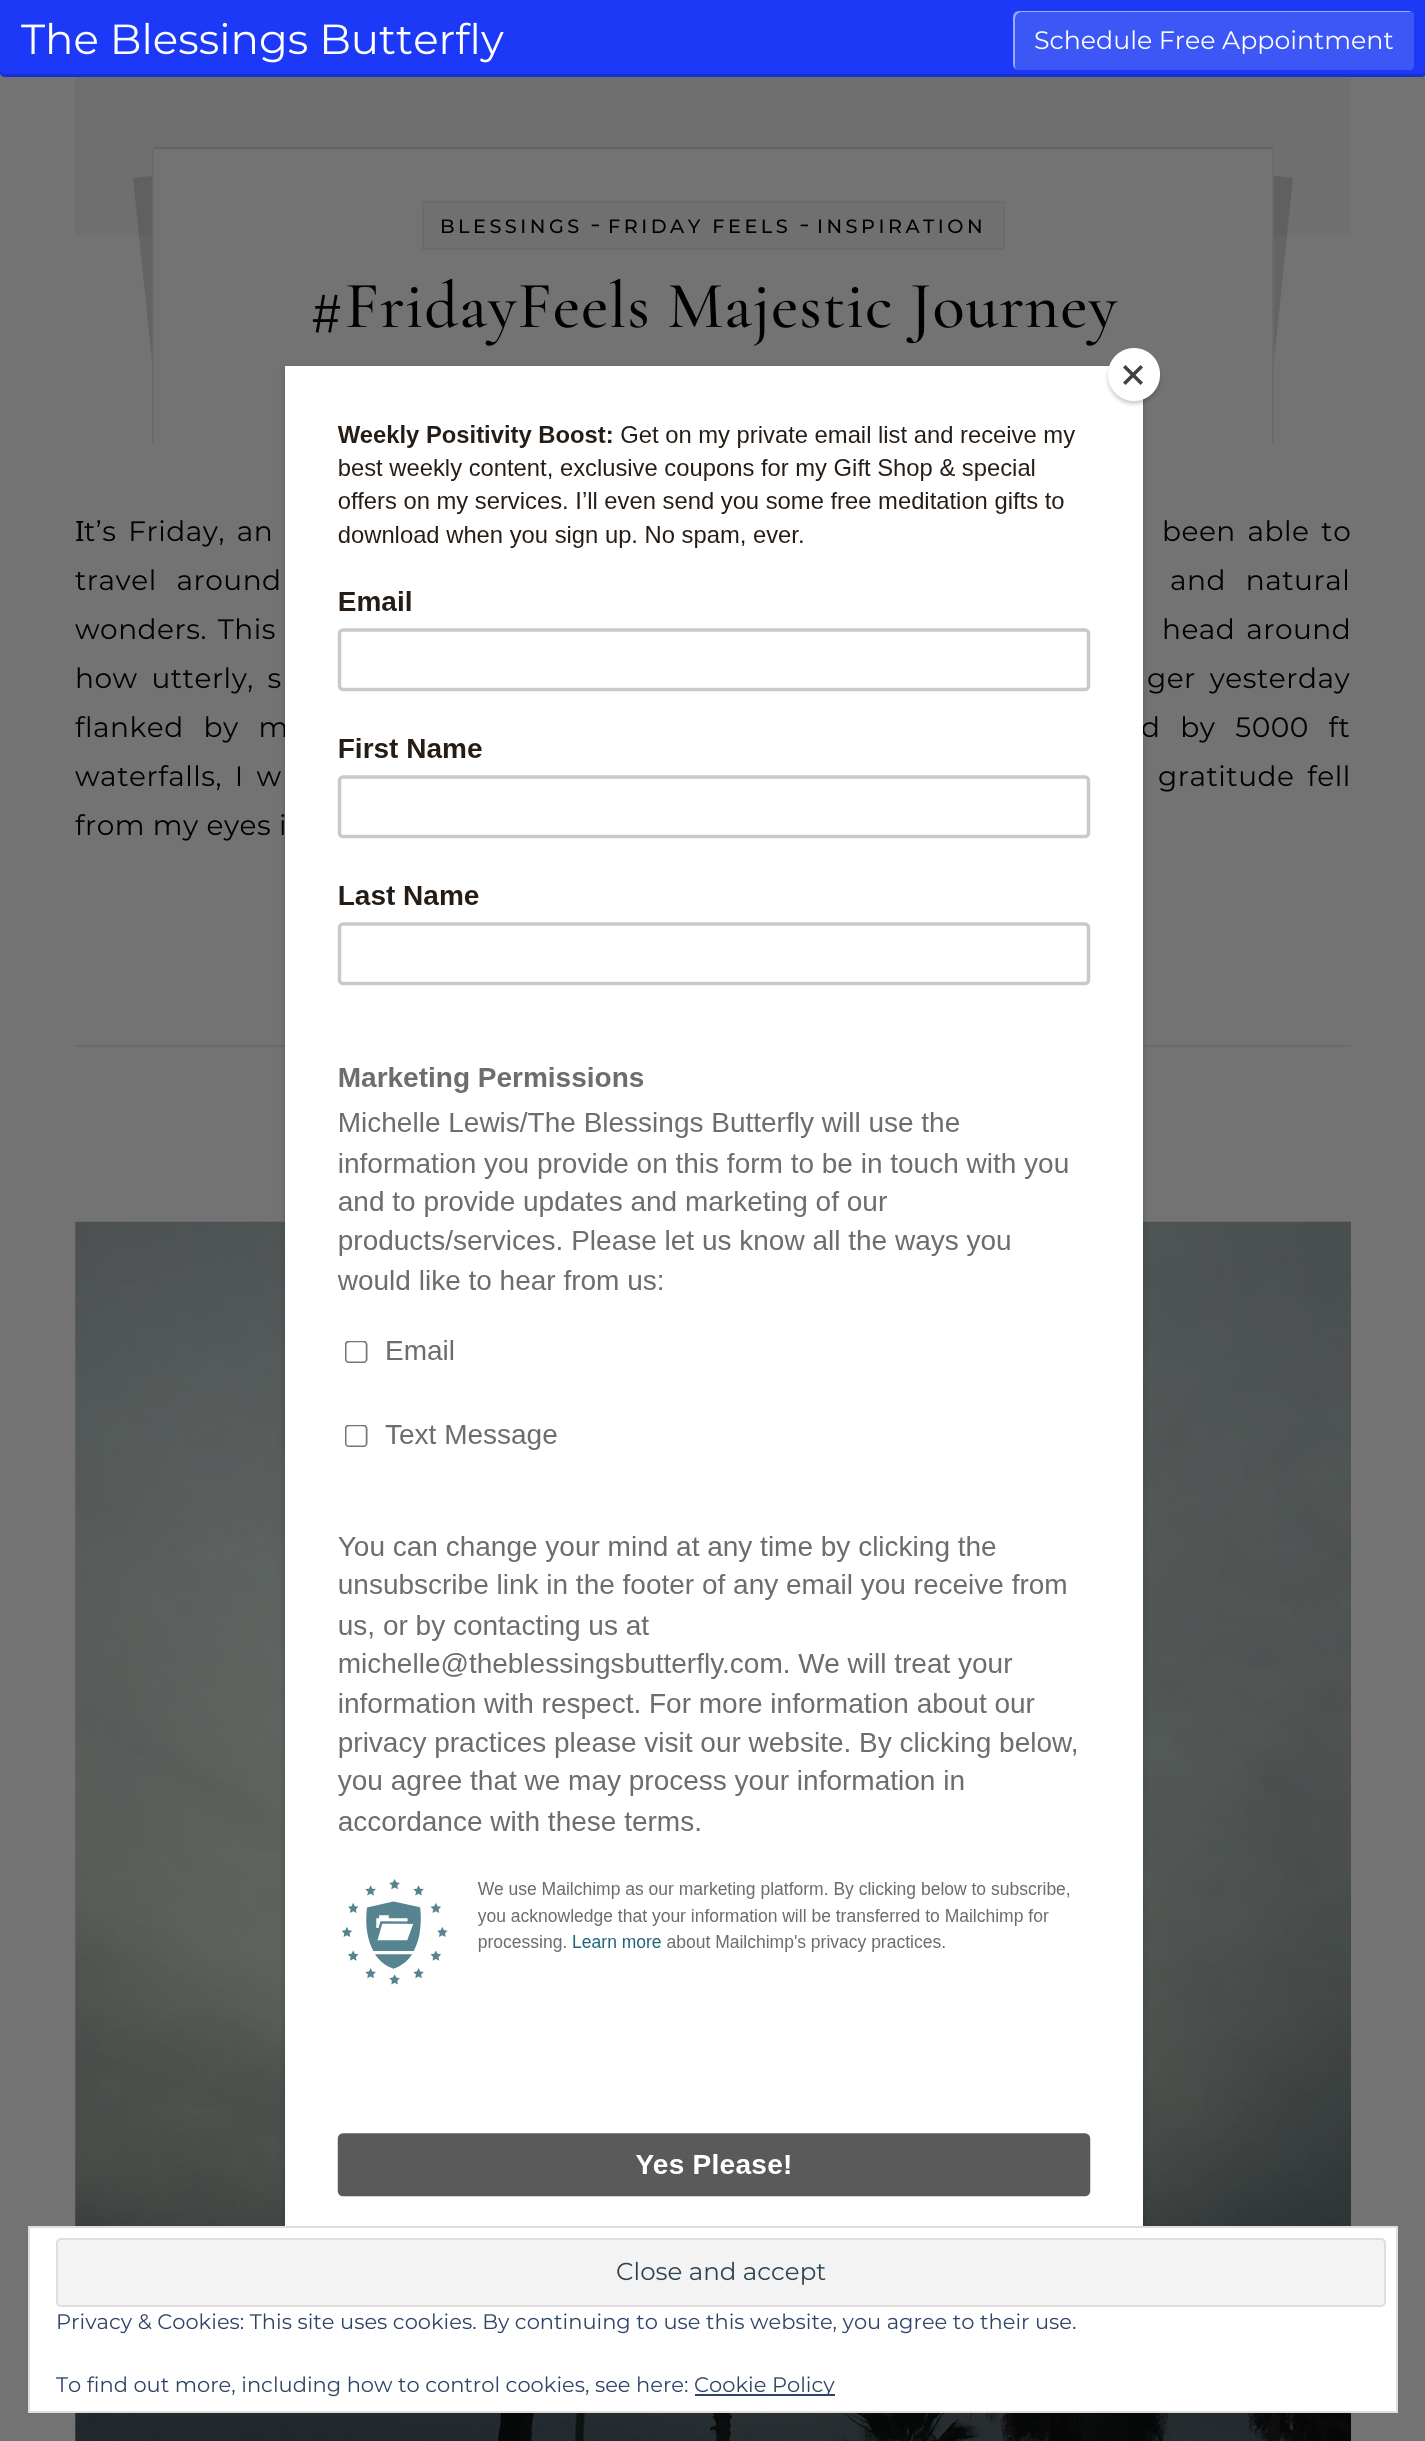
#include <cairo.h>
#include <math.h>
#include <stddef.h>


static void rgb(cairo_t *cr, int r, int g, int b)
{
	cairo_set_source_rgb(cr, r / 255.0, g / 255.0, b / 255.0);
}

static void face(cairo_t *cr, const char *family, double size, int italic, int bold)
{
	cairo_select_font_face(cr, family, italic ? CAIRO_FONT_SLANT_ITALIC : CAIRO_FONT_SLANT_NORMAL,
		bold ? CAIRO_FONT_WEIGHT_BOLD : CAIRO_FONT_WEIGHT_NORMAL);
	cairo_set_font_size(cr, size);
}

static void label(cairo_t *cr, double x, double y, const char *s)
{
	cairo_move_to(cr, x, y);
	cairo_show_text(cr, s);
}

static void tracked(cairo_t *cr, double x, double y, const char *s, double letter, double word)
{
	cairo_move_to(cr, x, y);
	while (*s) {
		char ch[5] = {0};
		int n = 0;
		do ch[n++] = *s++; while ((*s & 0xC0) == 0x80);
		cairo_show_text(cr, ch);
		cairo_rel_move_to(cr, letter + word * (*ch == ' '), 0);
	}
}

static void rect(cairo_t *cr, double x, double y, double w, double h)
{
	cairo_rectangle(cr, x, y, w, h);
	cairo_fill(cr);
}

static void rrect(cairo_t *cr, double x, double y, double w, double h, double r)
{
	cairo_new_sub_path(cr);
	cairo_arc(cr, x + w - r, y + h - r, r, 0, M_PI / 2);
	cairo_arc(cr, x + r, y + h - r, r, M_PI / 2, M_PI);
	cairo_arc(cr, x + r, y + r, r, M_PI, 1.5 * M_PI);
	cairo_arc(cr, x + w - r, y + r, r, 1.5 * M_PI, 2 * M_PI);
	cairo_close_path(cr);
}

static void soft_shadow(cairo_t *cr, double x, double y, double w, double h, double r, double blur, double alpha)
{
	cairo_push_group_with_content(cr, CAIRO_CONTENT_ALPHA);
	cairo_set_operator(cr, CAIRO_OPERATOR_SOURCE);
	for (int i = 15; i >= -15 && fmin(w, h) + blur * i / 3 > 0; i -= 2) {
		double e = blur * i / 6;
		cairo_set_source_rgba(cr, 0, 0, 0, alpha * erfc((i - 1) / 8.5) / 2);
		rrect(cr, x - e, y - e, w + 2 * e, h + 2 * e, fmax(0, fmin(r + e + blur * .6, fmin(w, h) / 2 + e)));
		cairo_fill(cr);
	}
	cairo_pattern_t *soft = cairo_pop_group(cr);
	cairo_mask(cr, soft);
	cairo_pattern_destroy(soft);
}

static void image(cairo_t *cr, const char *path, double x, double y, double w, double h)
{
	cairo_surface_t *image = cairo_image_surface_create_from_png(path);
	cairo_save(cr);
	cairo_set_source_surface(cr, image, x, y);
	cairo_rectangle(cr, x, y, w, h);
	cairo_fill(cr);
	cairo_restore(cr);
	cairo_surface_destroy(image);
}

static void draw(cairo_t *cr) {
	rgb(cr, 115, 115, 115);
	cairo_paint(cr);
	cairo_set_source_rgba(cr, 0, 0, 0, 0.15);
	cairo_new_path(cr);
	cairo_move_to(cr, 0, 68);
	cairo_line_to(cr, 0, 72);
	cairo_curve_to(cr, 0, 75, 2, 77, 5, 77);
	cairo_line_to(cr, 1421, 77);
	cairo_curve_to(cr, 1424, 77, 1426, 75, 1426, 72);
	cairo_line_to(cr, 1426, 68);
	cairo_curve_to(cr, 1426, 71, 1424, 74, 1421, 74);
	cairo_line_to(cr, 5, 74);
	cairo_curve_to(cr, 2, 74, 0, 71, 0, 68);
	cairo_close_path(cr);
	cairo_fill(cr);
	rgb(cr, 27, 57, 246);
	cairo_new_path(cr);
	cairo_move_to(cr, 0, 0);
	cairo_line_to(cr, 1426, 0);
	cairo_line_to(cr, 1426, 72);
	cairo_curve_to(cr, 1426, 75, 1424, 77, 1421, 77);
	cairo_line_to(cr, 5, 77);
	cairo_curve_to(cr, 2, 77, 0, 75, 0, 72);
	cairo_close_path(cr);
	cairo_fill(cr);
	cairo_set_source_rgba(cr, 0, 0, 0, 0.15);
	cairo_new_path(cr);
	cairo_move_to(cr, 0, 68);
	cairo_line_to(cr, 0, 72);
	cairo_curve_to(cr, 0, 75, 2, 77, 5, 77);
	cairo_line_to(cr, 1421, 77);
	cairo_curve_to(cr, 1424, 77, 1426, 75, 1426, 72);
	cairo_line_to(cr, 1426, 68);
	cairo_curve_to(cr, 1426, 71, 1424, 74, 1421, 74);
	cairo_line_to(cr, 5, 74);
	cairo_curve_to(cr, 2, 74, 0, 71, 0, 68);
	cairo_close_path(cr);
	cairo_fill(cr);
	face(cr, "Montserrat Thin", 42, 0, 0);
	rgb(cr, 255, 255, 255);
	label(cr, 21, 54, "The Blessings Butterfly");
	rgb(cr, 141, 156, 251);
	cairo_new_path(cr);
	cairo_move_to(cr, 1022, 12);
	cairo_line_to(cr, 1411, 12);
	cairo_curve_to(cr, 1410, 11, 1408, 11, 1407, 11);
	cairo_line_to(cr, 1020, 11);
	cairo_curve_to(cr, 1016, 11, 1013, 14, 1013, 18);
	cairo_line_to(cr, 1013, 63);
	cairo_curve_to(cr, 1013, 65, 1014, 68, 1016, 69);
	cairo_curve_to(cr, 1015, 68, 1015, 66, 1015, 65);
	cairo_line_to(cr, 1015, 19);
	cairo_curve_to(cr, 1015, 15, 1018, 12, 1022, 12);
	cairo_close_path(cr);
	cairo_fill(cr);
	face(cr, "Montserrat Thin", 25.25, 0, 0);
	rgb(cr, 255, 255, 255);
	label(cr, 1034, 49, "Schedule Free Appointment");
	cairo_set_source_rgba(cr, 1, 1, 1, 0.15);
	rrect(cr, 1013, 11, 401, 59, 4);
	cairo_fill(cr);
	rgb(cr, 107, 107, 107);
	rect(cr, 75, 1045, 1276, 2);
	rgb(cr, 111, 111, 111);
	rect(cr, 75, 77, 1276, 158);
	cairo_set_source_rgba(cr, 0.071, 0.078, 0.086, 0.15);
	cairo_new_path(cr);
	cairo_move_to(cr, 133, 178);
	cairo_line_to(cr, 168, 174);
	cairo_line_to(cr, 195, 435);
	cairo_line_to(cr, 160, 439);
	cairo_close_path(cr);
	cairo_fill(cr);
	cairo_new_path(cr);
	cairo_move_to(cr, 1259, 174);
	cairo_line_to(cr, 1293, 178);
	cairo_line_to(cr, 1266, 439);
	cairo_line_to(cr, 1231, 435);
	cairo_close_path(cr);
	cairo_fill(cr);
	rgb(cr, 115, 115, 115);
	rect(cr, 154, 149, 1118, 290);
	rgb(cr, 99, 99, 99);
	rect(cr, 152, 147, 1122, 2);
	rgb(cr, 107, 107, 107);
	rect(cr, 1272, 147, 2, 298);
	rect(cr, 152, 147, 2, 298);
	rgb(cr, 112, 112, 112);
	cairo_rectangle(cr, 423, 202, 581, 47);
	cairo_fill_preserve(cr);
	rgb(cr, 107, 107, 107);
	cairo_stroke(cr);
	face(cr, "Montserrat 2 Thin", 19.25, 0, 0);
	rgb(cr, 1, 1, 1);
	tracked(cr, 440, 233, "BLESSINGS", 3.5, 0);
	face(cr, "Montserrat Thin", 28, 0, 0);
	label(cr, 590, 233, "-");
	face(cr, "Montserrat 2 Thin", 19.25, 0, 0);
	tracked(cr, 608, 233, "FRIDAY FEELS", 3.5, 0);
	face(cr, "Montserrat Thin", 28, 0, 0);
	label(cr, 799, 233, "-");
	face(cr, "Montserrat 2 Thin", 19.25, 0, 0);
	tracked(cr, 817, 233, "INSPIRATION", 3.5, 0);
	face(cr, "Cormorant Garamond Medium", 66.5, 0, 0);
	tracked(cr, 309, 327, "#FridayFeels Majestic Journey", 0.9, 0);
	face(cr, "Noto Sans", 28, 0, 0);
	tracked(cr, 75, 541, "I", 0.5, 0);
	face(cr, "Montserrat Thin", 28, 0, 0);
	tracked(cr, 84, 541, "t’s Friday, an", 0.5, 4);
	tracked(cr, 1162, 541, "been able to", 0.5, 4);
	tracked(cr, 75, 590, "travel around", 0.5, 12);
	tracked(cr, 1170, 590, "and natural", 0.5, 12);
	tracked(cr, 75, 639, "wonders. This", 0.5, 3);
	tracked(cr, 1162, 639, "head around", 0.5, 3);
	tracked(cr, 75, 688, "how utterly, s", 0.5, 6);
	tracked(cr, 1147, 688, "ger yesterday", 0.5, 6);
	tracked(cr, 75, 737, "flanked by m", 0.5, 12);
	tracked(cr, 1141, 737, "d by 5000 ft", 0.5, 12);
	tracked(cr, 75, 786, "waterfalls, I w", 0.5, 5);
	tracked(cr, 1158, 786, "gratitude fell", 0.5, 5);
	tracked(cr, 75, 835, "from my eyes i", 0.5, 0);
	image(cr, "image0.png", 75, 1221, 1276, 1220);
	rgb(cr, 0, 0, 0);
	soft_shadow(cr, 285, 369, 858, 1918, 0, 3.5, 0.2);
	image(cr, "image1.png", 285, 366, 858, 1860);
	soft_shadow(cr, 1108, 352, 52, 52, 26, 2, 0.2);
	rgb(cr, 255, 255, 255);
	rrect(cr, 1108, 348, 52, 53, 26);
	cairo_fill(cr);
	rgb(cr, 65, 65, 65);
	cairo_new_path(cr);
	cairo_move_to(cr, 1140.5, 365);
	cairo_line_to(cr, 1143, 367.5);
	cairo_line_to(cr, 1125.5, 385);
	cairo_line_to(cr, 1123, 382.5);
	cairo_close_path(cr);
	cairo_fill(cr);
	cairo_new_path(cr);
	cairo_move_to(cr, 1123, 367.5);
	cairo_line_to(cr, 1125.5, 365);
	cairo_line_to(cr, 1143, 382.5);
	cairo_line_to(cr, 1140.5, 385);
	cairo_close_path(cr);
	cairo_fill(cr);
	rgb(cr, 255, 255, 255);
	cairo_rectangle(cr, 29, 2227, 1368, 185);
	cairo_fill_preserve(cr);
	rgb(cr, 222, 222, 222);
	cairo_stroke(cr);
	rgb(cr, 243, 243, 243);
	rrect(cr, 57, 2239, 1328, 67, 4);
	cairo_fill_preserve(cr);
	rgb(cr, 222, 222, 222);
	cairo_stroke(cr);
	face(cr, "Montserrat Thin", 24.5, 0, 0);
	rgb(cr, 46, 68, 83);
	label(cr, 616, 2280, "Close and accept");
	face(cr, "Montserrat Thin", 21, 0, 0);
	rgb(cr, 46, 68, 103);
	label(cr, 56, 2329, "Privacy & Cookies: This site uses cookies. By continuing to use this website, you agree to their use.");
	label(cr, 56, 2392, "To find out more, including how to control cookies, see here:");
	rect(cr, 695, 2394, 140, 2);
	label(cr, 694, 2392, "Cookie Policy");
}

int main(void) {
	cairo_surface_t *surface = cairo_image_surface_create(CAIRO_FORMAT_RGB24, 1425, 2441);
	cairo_t *cr = cairo_create(surface);
	cairo_font_options_t *options = cairo_font_options_create();
	cairo_font_options_set_hint_metrics(options, CAIRO_HINT_METRICS_OFF);
	cairo_font_options_set_hint_style(options, CAIRO_HINT_STYLE_NONE);
	cairo_set_font_options(cr, options);
	cairo_set_miter_limit(cr, 4);
	draw(cr);
	cairo_surface_write_to_png(surface, "render.png");
	cairo_font_options_destroy(options);
	cairo_destroy(cr);
	cairo_surface_destroy(surface);
	return 0;
}
